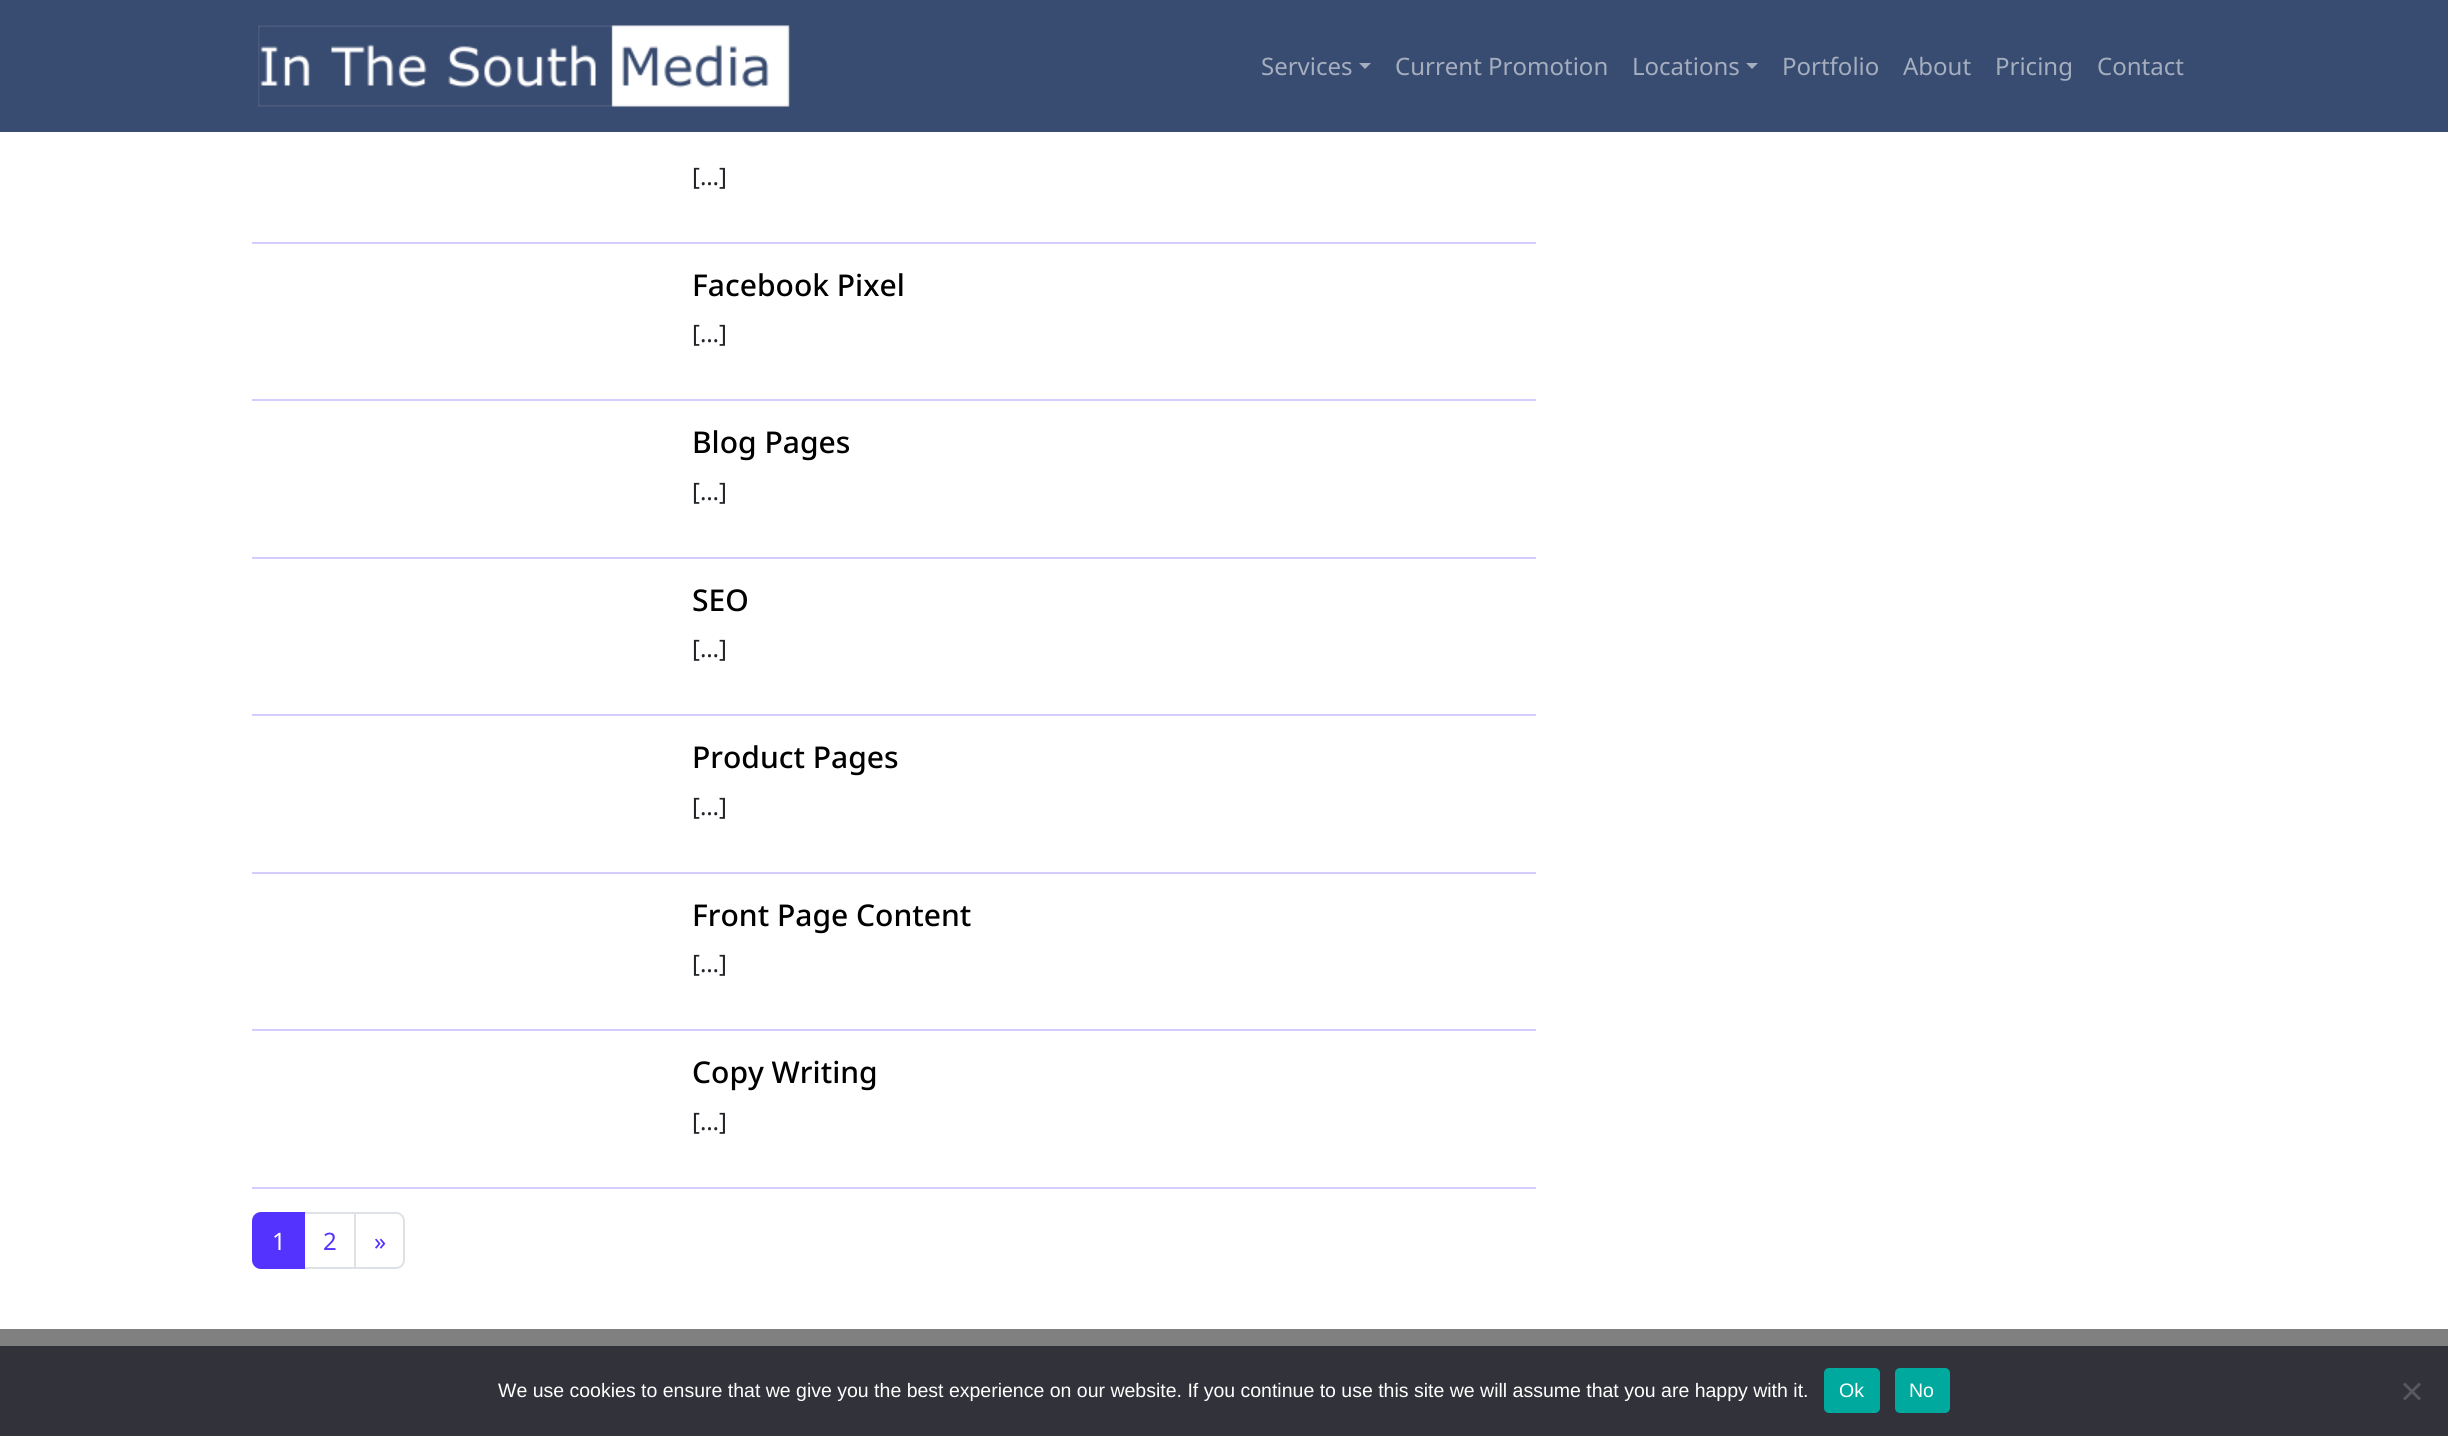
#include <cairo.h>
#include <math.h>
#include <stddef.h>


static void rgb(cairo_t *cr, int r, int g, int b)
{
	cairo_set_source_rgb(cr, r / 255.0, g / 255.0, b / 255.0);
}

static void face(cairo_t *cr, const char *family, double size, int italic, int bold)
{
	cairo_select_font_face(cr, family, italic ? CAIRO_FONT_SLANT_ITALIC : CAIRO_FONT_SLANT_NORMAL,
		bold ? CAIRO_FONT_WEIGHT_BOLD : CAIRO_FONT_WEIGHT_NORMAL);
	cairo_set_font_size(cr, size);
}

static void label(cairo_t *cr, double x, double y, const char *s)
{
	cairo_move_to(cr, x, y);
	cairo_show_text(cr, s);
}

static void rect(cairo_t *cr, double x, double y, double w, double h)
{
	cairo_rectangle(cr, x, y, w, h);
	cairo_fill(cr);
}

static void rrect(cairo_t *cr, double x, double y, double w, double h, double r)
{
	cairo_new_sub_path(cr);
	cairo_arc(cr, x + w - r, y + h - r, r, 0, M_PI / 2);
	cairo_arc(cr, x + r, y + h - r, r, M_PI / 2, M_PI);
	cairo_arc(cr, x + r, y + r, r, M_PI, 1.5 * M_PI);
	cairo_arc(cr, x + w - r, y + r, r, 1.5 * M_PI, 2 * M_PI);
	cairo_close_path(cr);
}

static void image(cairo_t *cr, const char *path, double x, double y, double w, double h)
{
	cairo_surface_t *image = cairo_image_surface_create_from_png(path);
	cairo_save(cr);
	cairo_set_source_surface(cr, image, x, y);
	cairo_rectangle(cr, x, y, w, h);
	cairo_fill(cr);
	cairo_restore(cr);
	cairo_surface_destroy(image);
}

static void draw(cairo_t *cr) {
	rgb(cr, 255, 255, 255);
	cairo_paint(cr);
	rgb(cr, 56, 75, 112);
	rect(cr, 0, 0, 2448, 132);
	image(cr, "image0.png", 258, 25, 532, 82);
	face(cr, "Noto Sans", 24, 0, 0);
	rgb(cr, 165, 174, 191);
	label(cr, 1261, 75, "Services");
	cairo_new_path(cr);
	cairo_move_to(cr, 1359, 63);
	cairo_line_to(cr, 1371, 63);
	cairo_line_to(cr, 1365, 69);
	cairo_close_path(cr);
	cairo_fill(cr);
	label(cr, 1395, 75, "Current Promotion");
	label(cr, 1632, 75, "Locations");
	cairo_new_path(cr);
	cairo_move_to(cr, 1746, 63);
	cairo_line_to(cr, 1758, 63);
	cairo_line_to(cr, 1752, 69);
	cairo_close_path(cr);
	cairo_fill(cr);
	label(cr, 1782, 75, "Portfolio");
	label(cr, 1903, 75, "About");
	label(cr, 1995, 75, "Pricing");
	label(cr, 2097, 75, "Contact");
	rgb(cr, 33, 37, 41);
	label(cr, 692, 185, "[…]");
	rgb(cr, 213, 204, 255);
	rect(cr, 252, 242, 1284, 2);
	face(cr, "Noto Sans Medium", 30, 0, 0);
	rgb(cr, 0, 0, 0);
	label(cr, 692, 296, "Facebook Pixel");
	face(cr, "Noto Sans", 24, 0, 0);
	rgb(cr, 33, 37, 41);
	label(cr, 692, 342, "[…]");
	rgb(cr, 213, 204, 255);
	rect(cr, 252, 399, 1284, 2);
	face(cr, "Noto Sans Medium", 30, 0, 0);
	rgb(cr, 0, 0, 0);
	label(cr, 692, 453, "Blog Pages");
	face(cr, "Noto Sans", 24, 0, 0);
	rgb(cr, 33, 37, 41);
	label(cr, 692, 500, "[…]");
	rgb(cr, 213, 204, 255);
	rect(cr, 252, 557, 1284, 2);
	face(cr, "Noto Sans Medium", 30, 0, 0);
	rgb(cr, 0, 0, 0);
	label(cr, 692, 611, "SEO");
	face(cr, "Noto Sans", 24, 0, 0);
	rgb(cr, 33, 37, 41);
	label(cr, 692, 657, "[…]");
	rgb(cr, 213, 204, 255);
	rect(cr, 252, 714, 1284, 2);
	face(cr, "Noto Sans Medium", 30, 0, 0);
	rgb(cr, 0, 0, 0);
	label(cr, 692, 768, "Product Pages");
	face(cr, "Noto Sans", 24, 0, 0);
	rgb(cr, 33, 37, 41);
	label(cr, 692, 815, "[…]");
	rgb(cr, 213, 204, 255);
	rect(cr, 252, 872, 1284, 2);
	face(cr, "Noto Sans Medium", 30, 0, 0);
	rgb(cr, 0, 0, 0);
	label(cr, 692, 926, "Front Page Content");
	face(cr, "Noto Sans", 24, 0, 0);
	rgb(cr, 33, 37, 41);
	label(cr, 692, 972, "[…]");
	rgb(cr, 213, 204, 255);
	rect(cr, 252, 1029, 1284, 2);
	face(cr, "Noto Sans Medium", 30, 0, 0);
	rgb(cr, 0, 0, 0);
	label(cr, 692, 1083, "Copy Writing");
	face(cr, "Noto Sans", 24, 0, 0);
	rgb(cr, 33, 37, 41);
	label(cr, 692, 1130, "[…]");
	rgb(cr, 213, 204, 255);
	rect(cr, 252, 1187, 1284, 2);
	cairo_rectangle(cr, 304, 1213, 51, 55);
	rgb(cr, 222, 226, 230);
	cairo_stroke(cr);
	rgb(cr, 85, 51, 255);
	cairo_new_path(cr);
	cairo_move_to(cr, 261, 1213);
	cairo_line_to(cr, 304, 1213);
	cairo_line_to(cr, 304, 1268);
	cairo_line_to(cr, 261, 1268);
	cairo_curve_to(cr, 256.5, 1268, 253, 1264.5, 253, 1260);
	cairo_line_to(cr, 253, 1221);
	cairo_curve_to(cr, 253, 1216.5, 256.5, 1213, 261, 1213);
	cairo_close_path(cr);
	cairo_fill_preserve(cr);
	cairo_stroke(cr);
	rgb(cr, 255, 255, 255);
	label(cr, 272, 1250, "1");
	rgb(cr, 85, 51, 255);
	label(cr, 323, 1250, "2");
	rgb(cr, 255, 255, 255);
	cairo_new_path(cr);
	cairo_move_to(cr, 355, 1213);
	cairo_line_to(cr, 396, 1213);
	cairo_curve_to(cr, 400.5, 1213, 404, 1216.5, 404, 1221);
	cairo_line_to(cr, 404, 1260);
	cairo_curve_to(cr, 404, 1264.5, 400.5, 1268, 396, 1268);
	cairo_line_to(cr, 355, 1268);
	cairo_close_path(cr);
	cairo_fill_preserve(cr);
	rgb(cr, 222, 226, 230);
	cairo_stroke(cr);
	rgb(cr, 85, 51, 255);
	label(cr, 374, 1250, "»");
	rgb(cr, 128, 128, 128);
	rect(cr, 0, 1329, 2448, 17);
	rgb(cr, 50, 50, 58);
	rect(cr, 0, 1346, 2448, 90);
	face(cr, "Liberation Sans", 19.5, 0, 0);
	rgb(cr, 255, 255, 255);
	label(cr, 498, 1397, "We use cookies to ensure that we give you the best experience on our website. If you continue to use this site we will assume that you are happy with it.");
	rgb(cr, 0, 169, 157);
	rrect(cr, 1824, 1368, 56, 45, 5);
	cairo_fill(cr);
	rgb(cr, 255, 255, 255);
	label(cr, 1839, 1397, "Ok");
	rgb(cr, 0, 169, 157);
	rrect(cr, 1895, 1368, 55, 45, 5);
	cairo_fill(cr);
	rgb(cr, 255, 255, 255);
	label(cr, 1909, 1397, "No");
	rgb(cr, 89, 89, 93);
	cairo_new_path(cr);
	cairo_move_to(cr, 2419, 1382.5);
	cairo_line_to(cr, 2421, 1384.5);
	cairo_line_to(cr, 2405, 1400.5);
	cairo_line_to(cr, 2403, 1398.5);
	cairo_close_path(cr);
	cairo_fill(cr);
	cairo_new_path(cr);
	cairo_move_to(cr, 2403, 1384.5);
	cairo_line_to(cr, 2405, 1382.5);
	cairo_line_to(cr, 2421, 1398.5);
	cairo_line_to(cr, 2419, 1400.5);
	cairo_close_path(cr);
	cairo_fill(cr);
}

int main(void) {
	cairo_surface_t *surface = cairo_image_surface_create(CAIRO_FORMAT_RGB24, 2448, 1436);
	cairo_t *cr = cairo_create(surface);
	cairo_font_options_t *options = cairo_font_options_create();
	cairo_font_options_set_hint_metrics(options, CAIRO_HINT_METRICS_OFF);
	cairo_font_options_set_hint_style(options, CAIRO_HINT_STYLE_NONE);
	cairo_set_font_options(cr, options);
	cairo_set_miter_limit(cr, 4);
	draw(cr);
	cairo_surface_write_to_png(surface, "render.png");
	cairo_font_options_destroy(options);
	cairo_destroy(cr);
	cairo_surface_destroy(surface);
	return 0;
}
